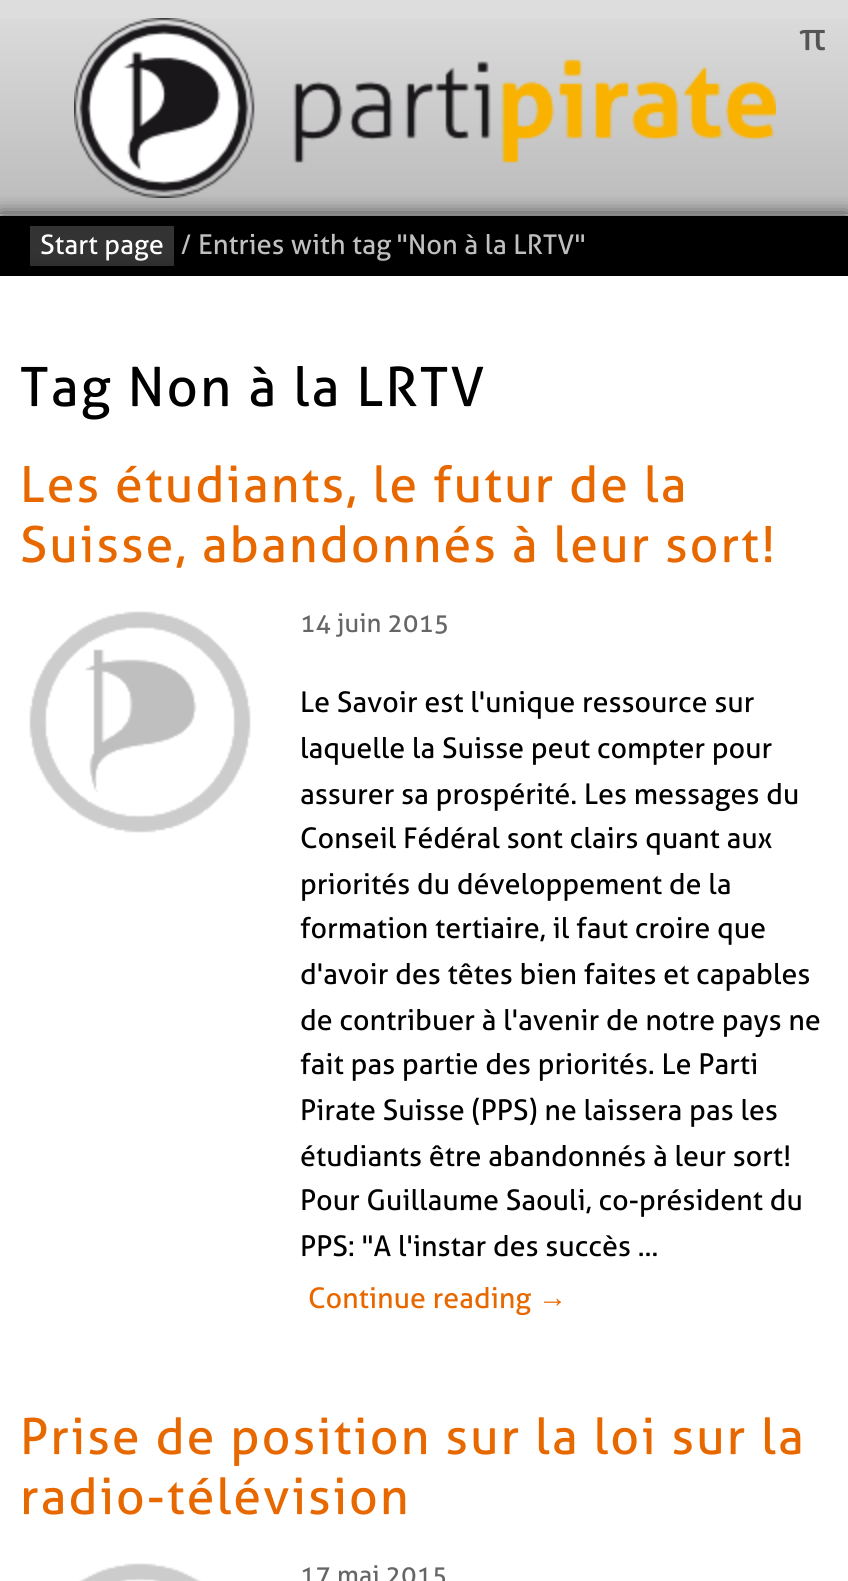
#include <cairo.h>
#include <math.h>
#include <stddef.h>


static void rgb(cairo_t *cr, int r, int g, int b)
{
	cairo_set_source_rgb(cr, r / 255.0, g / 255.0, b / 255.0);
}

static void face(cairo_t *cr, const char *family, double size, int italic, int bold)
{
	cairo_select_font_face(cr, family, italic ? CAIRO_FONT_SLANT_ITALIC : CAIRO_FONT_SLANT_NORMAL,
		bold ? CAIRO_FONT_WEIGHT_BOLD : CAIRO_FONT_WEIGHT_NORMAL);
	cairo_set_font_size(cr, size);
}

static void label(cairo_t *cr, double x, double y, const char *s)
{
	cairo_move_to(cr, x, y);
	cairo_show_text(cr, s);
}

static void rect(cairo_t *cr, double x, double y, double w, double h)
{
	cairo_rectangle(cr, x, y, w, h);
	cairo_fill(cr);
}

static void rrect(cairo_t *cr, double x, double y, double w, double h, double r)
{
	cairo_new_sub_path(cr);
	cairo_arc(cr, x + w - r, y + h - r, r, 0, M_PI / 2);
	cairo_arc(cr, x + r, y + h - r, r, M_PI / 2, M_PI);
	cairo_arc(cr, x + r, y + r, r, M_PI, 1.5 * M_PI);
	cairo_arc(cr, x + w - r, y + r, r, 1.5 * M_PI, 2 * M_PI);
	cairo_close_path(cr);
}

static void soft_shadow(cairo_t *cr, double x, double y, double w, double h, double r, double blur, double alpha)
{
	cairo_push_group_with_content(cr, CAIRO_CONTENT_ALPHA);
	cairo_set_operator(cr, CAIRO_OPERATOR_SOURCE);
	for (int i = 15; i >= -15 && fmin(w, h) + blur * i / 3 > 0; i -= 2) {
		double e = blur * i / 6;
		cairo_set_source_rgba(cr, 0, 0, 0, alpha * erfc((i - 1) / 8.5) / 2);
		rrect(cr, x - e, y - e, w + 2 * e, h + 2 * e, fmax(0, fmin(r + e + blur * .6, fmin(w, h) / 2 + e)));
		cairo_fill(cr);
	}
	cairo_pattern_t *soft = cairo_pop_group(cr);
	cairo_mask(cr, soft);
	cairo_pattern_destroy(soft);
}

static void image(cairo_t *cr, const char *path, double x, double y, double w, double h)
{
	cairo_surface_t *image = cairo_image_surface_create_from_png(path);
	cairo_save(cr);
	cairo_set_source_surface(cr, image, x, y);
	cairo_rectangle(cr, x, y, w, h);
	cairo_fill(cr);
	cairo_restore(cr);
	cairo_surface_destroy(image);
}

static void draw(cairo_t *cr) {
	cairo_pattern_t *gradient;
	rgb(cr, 221, 221, 221);
	cairo_paint(cr);
	gradient = cairo_pattern_create_linear(424, 2, 424, 214);
	cairo_pattern_add_color_stop_rgba(gradient, 0, 0.867, 0.867, 0.867, 1);
	cairo_pattern_add_color_stop_rgba(gradient, 1, 0.733, 0.733, 0.733, 1);
	cairo_set_source(cr, gradient);
	cairo_pattern_destroy(gradient);
	rect(cr, 0, 18, 848, 196);
	image(cr, "image0.png", 74, 18, 702, 180);
	image(cr, "image1.png", 799, 29, 26, 22);
	rgb(cr, 0, 0, 0);
	rect(cr, 0, 216, 848, 60);
	cairo_save(cr);
	cairo_rectangle(cr, 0, 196, 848, 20);
	cairo_clip(cr);
	rgb(cr, 0, 0, 0);
	soft_shadow(cr, 0, 216, 848, 60, 0, 10, 0.8);
	cairo_restore(cr);
	rgb(cr, 51, 51, 51);
	rect(cr, 30, 226, 144, 40);
	image(cr, "image2.png", 41, 234, 122, 27);
	rgb(cr, 192, 192, 192);
	cairo_new_path(cr);
	cairo_move_to(cr, 188, 234.5);
	cairo_line_to(cr, 190.5, 234.5);
	cairo_line_to(cr, 184, 254);
	cairo_line_to(cr, 181.5, 254);
	cairo_close_path(cr);
	cairo_fill(cr);
	image(cr, "image3.png", 200, 233, 192, 28);
	image(cr, "image4.png", 398, 234, 186, 21);
	rgb(cr, 0, 0, 0);
	soft_shadow(cr, 0, 276, 848, 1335, 0, 10, 0.8);
	rgb(cr, 255, 255, 255);
	rect(cr, 0, 276, 848, 1305);
	image(cr, "image5.png", 21, 365, 463, 55);
	image(cr, "image6.png", 24, 464, 659, 44);
	image(cr, "image7.png", 22, 525, 750, 43);
	image(cr, "image8.png", 29, 611, 222, 222);
	image(cr, "image9.png", 302, 613, 145, 24);
	image(cr, "image10.png", 302, 690, 452, 29);
	image(cr, "image11.png", 302, 736, 470, 29);
	image(cr, "image12.png", 301, 782, 497, 30);
	image(cr, "image13.png", 301, 826, 471, 29);
	image(cr, "image14.png", 302, 872, 428, 29);
	image(cr, "image15.png", 300, 916, 465, 29);
	image(cr, "image16.png", 301, 962, 508, 29);
	image(cr, "image17.png", 301, 1008, 519, 30);
	image(cr, "image18.png", 300, 1052, 456, 29);
	image(cr, "image19.png", 302, 1097, 475, 30);
	image(cr, "image20.png", 301, 1144, 488, 23);
	image(cr, "image21.png", 302, 1188, 499, 29);
	image(cr, "image22.png", 302, 1234, 355, 23);
	image(cr, "image23.png", 309, 1286, 222, 30);
	face(cr, "Liberation Serif", 29, 0, 0);
	rgb(cr, 232, 104, 0);
	label(cr, 538, 1307, "→");
	image(cr, "image24.png", 24, 1417, 777, 49);
	image(cr, "image25.png", 24, 1477, 382, 38);
	image(cr, "image26.png", 79, 1563, 122, 18);
	image(cr, "image27.png", 302, 1565, 144, 16);
}

int main(void) {
	cairo_surface_t *surface = cairo_image_surface_create(CAIRO_FORMAT_RGB24, 848, 1581);
	cairo_t *cr = cairo_create(surface);
	cairo_font_options_t *options = cairo_font_options_create();
	cairo_font_options_set_hint_metrics(options, CAIRO_HINT_METRICS_OFF);
	cairo_font_options_set_hint_style(options, CAIRO_HINT_STYLE_NONE);
	cairo_set_font_options(cr, options);
	cairo_set_miter_limit(cr, 4);
	draw(cr);
	cairo_surface_write_to_png(surface, "render.png");
	cairo_font_options_destroy(options);
	cairo_destroy(cr);
	cairo_surface_destroy(surface);
	return 0;
}
